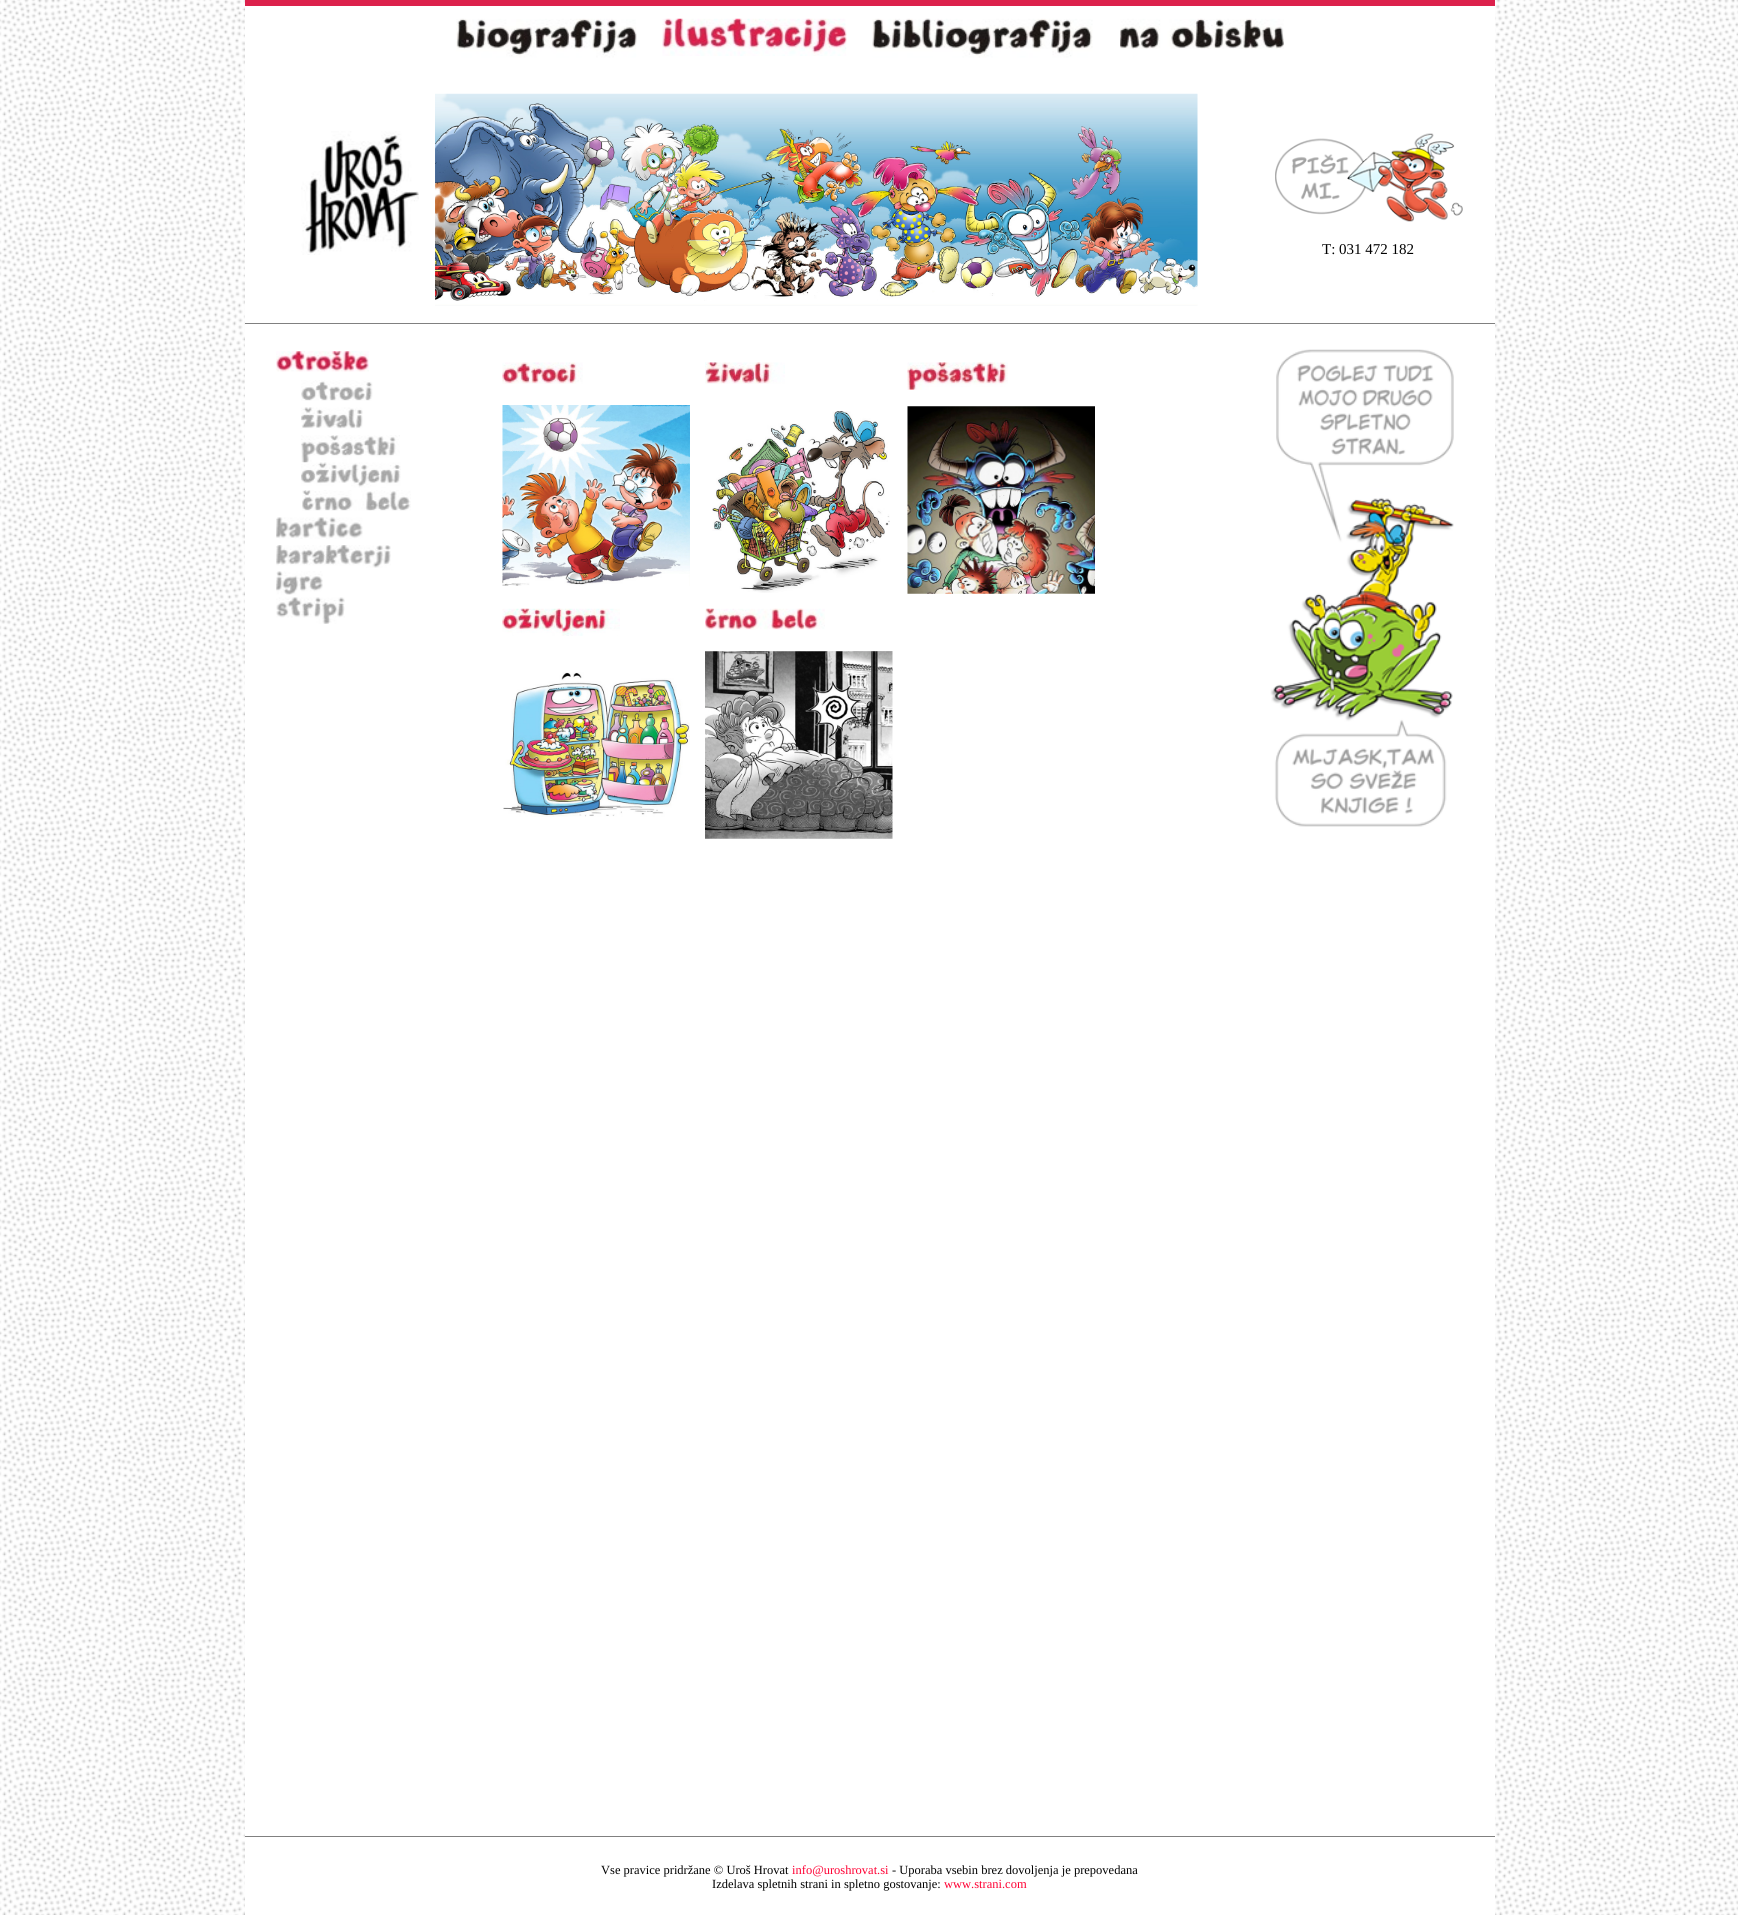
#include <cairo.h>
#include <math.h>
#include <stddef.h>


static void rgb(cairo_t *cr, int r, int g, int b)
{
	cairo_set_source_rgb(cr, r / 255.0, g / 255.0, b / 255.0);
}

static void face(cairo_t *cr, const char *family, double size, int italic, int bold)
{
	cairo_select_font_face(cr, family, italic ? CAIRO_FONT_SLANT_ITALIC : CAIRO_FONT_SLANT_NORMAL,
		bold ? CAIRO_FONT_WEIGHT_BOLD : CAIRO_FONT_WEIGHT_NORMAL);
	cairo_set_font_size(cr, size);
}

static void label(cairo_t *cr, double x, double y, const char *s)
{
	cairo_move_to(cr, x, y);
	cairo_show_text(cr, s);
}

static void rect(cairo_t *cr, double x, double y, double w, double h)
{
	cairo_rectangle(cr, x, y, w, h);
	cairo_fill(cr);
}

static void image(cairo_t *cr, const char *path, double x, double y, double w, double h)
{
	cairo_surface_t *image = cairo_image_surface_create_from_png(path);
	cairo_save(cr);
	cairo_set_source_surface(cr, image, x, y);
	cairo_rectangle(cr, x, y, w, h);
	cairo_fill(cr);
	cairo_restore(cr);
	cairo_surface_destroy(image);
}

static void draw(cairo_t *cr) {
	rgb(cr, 255, 255, 255);
	cairo_paint(cr);
	image(cr, "image0.png", 0, 0, 1738, 1915);
	rgb(cr, 255, 255, 255);
	rect(cr, 245, 6, 1250, 1909);
	rgb(cr, 220, 33, 76);
	rect(cr, 245, 0, 1250, 6);
	image(cr, "image1.png", 456, 18, 181, 40);
	image(cr, "image2.png", 662, 18, 185, 38);
	image(cr, "image3.png", 872, 18, 221, 40);
	image(cr, "image4.png", 1120, 18, 164, 31);
	image(cr, "image5.png", 301, 131, 118, 124);
	image(cr, "image6.png", 435, 93, 763, 213);
	image(cr, "image7.png", 1275, 133, 188, 89);
	face(cr, "Liberation Serif", 15, 0, 0);
	rgb(cr, 0, 0, 0);
	label(cr, 1322, 254, "T: 031 472 182");
	rgb(cr, 128, 128, 128);
	rect(cr, 245, 323, 1250, 1);
	image(cr, "image8.png", 276, 351, 93, 21);
	image(cr, "image9.png", 301, 380, 72, 21);
	image(cr, "image10.png", 301, 407, 62, 22);
	image(cr, "image11.png", 301, 435, 99, 28);
	image(cr, "image12.png", 301, 462, 100, 26);
	image(cr, "image13.png", 302, 490, 109, 21);
	image(cr, "image14.png", 276, 517, 87, 22);
	image(cr, "image15.png", 276, 545, 115, 23);
	image(cr, "image16.png", 276, 571, 47, 24);
	image(cr, "image17.png", 276, 597, 69, 27);
	image(cr, "image18.png", 502, 362, 81, 22);
	image(cr, "image19.png", 705, 362, 80, 22);
	image(cr, "image20.png", 907, 362, 101, 28);
	image(cr, "image21.png", 502, 405, 188, 181);
	image(cr, "image22.png", 712, 411, 178, 182);
	image(cr, "image23.png", 907, 406, 188, 188);
	image(cr, "image24.png", 502, 608, 118, 28);
	image(cr, "image25.png", 705, 608, 120, 22);
	image(cr, "image26.png", 503, 672, 187, 145);
	image(cr, "image27.png", 705, 651, 188, 188);
	image(cr, "image28.png", 1270, 349, 184, 478);
	rect(cr, 245, 1836, 1250, 1);
	face(cr, "Liberation Serif", 12.5, 0, 0);
	rgb(cr, 0, 0, 0);
	label(cr, 601, 1874, "Vse pravice pridržane © Uroš Hrovat");
	rgb(cr, 255, 0, 51);
	label(cr, 792, 1874, "info@uroshrovat.si");
	rgb(cr, 0, 0, 0);
	label(cr, 892, 1874, "- Uporaba vsebin brez dovoljenja je prepovedana");
	label(cr, 712, 1888, "Izdelava spletnih strani in spletno gostovanje:");
	rgb(cr, 255, 0, 51);
	label(cr, 944, 1888, "www.strani.com");
}

int main(void) {
	cairo_surface_t *surface = cairo_image_surface_create(CAIRO_FORMAT_RGB24, 1738, 1915);
	cairo_t *cr = cairo_create(surface);
	cairo_font_options_t *options = cairo_font_options_create();
	cairo_font_options_set_hint_metrics(options, CAIRO_HINT_METRICS_OFF);
	cairo_font_options_set_hint_style(options, CAIRO_HINT_STYLE_NONE);
	cairo_set_font_options(cr, options);
	cairo_set_miter_limit(cr, 4);
	draw(cr);
	cairo_surface_write_to_png(surface, "render.png");
	cairo_font_options_destroy(options);
	cairo_destroy(cr);
	cairo_surface_destroy(surface);
	return 0;
}
